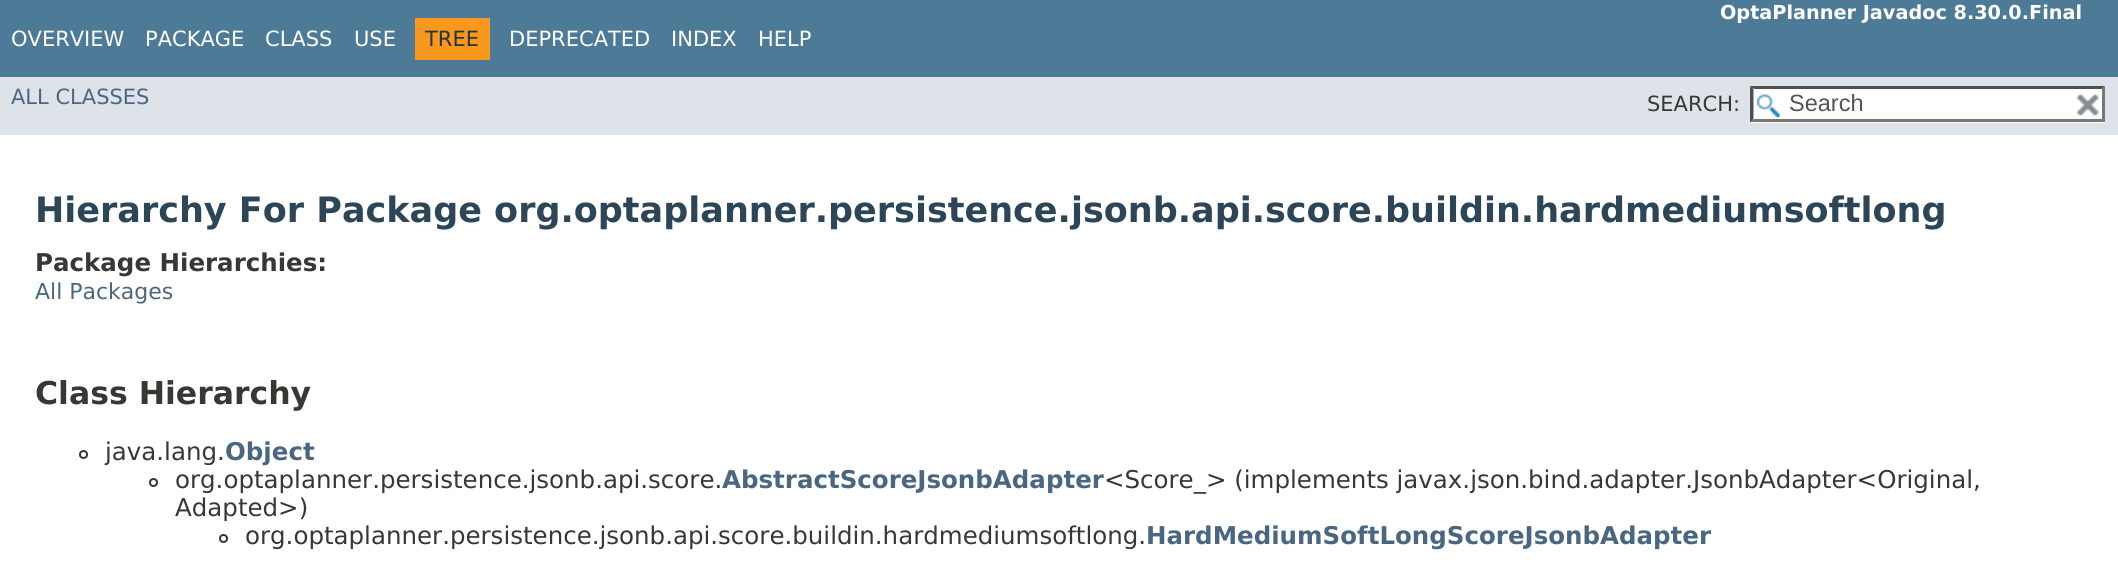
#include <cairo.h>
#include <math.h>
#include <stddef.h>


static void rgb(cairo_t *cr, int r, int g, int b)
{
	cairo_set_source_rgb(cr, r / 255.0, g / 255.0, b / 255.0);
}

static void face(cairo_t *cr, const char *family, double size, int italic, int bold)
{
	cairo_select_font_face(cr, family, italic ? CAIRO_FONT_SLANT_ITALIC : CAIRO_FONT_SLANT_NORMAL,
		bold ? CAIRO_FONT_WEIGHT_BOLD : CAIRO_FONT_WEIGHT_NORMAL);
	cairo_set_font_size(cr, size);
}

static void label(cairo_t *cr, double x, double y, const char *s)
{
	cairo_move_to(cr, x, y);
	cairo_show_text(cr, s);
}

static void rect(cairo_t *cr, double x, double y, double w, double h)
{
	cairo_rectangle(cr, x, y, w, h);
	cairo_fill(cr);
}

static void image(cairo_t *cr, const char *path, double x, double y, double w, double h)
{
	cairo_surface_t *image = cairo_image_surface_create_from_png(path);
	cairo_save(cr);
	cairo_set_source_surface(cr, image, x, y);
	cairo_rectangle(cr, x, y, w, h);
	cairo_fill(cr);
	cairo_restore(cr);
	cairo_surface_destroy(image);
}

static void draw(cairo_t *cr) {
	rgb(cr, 255, 255, 255);
	cairo_paint(cr);
	rgb(cr, 77, 122, 151);
	rect(cr, 0, 0, 2118, 77);
	face(cr, "DejaVu Sans", 19.25, 0, 1);
	rgb(cr, 255, 255, 255);
	label(cr, 1720, 19, "OptaPlanner Javadoc 8.30.0.Final");
	face(cr, "DejaVu Sans", 21, 0, 0);
	label(cr, 11, 46, "OVERVIEW");
	label(cr, 145, 46, "PACKAGE");
	label(cr, 265, 46, "CLASS");
	label(cr, 354, 46, "USE");
	rgb(cr, 248, 152, 29);
	rect(cr, 415, 18, 75, 42);
	rgb(cr, 37, 52, 65);
	label(cr, 425, 46, "TREE");
	rgb(cr, 255, 255, 255);
	label(cr, 509, 46, "DEPRECATED");
	label(cr, 671, 46, "INDEX");
	label(cr, 758, 46, "HELP");
	rgb(cr, 222, 227, 233);
	rect(cr, 0, 77, 2118, 58);
	rgb(cr, 74, 103, 130);
	label(cr, 11, 104, "ALL CLASSES");
	rgb(cr, 53, 56, 51);
	label(cr, 1647, 111, "SEARCH:");
	rgb(cr, 255, 255, 255);
	rect(cr, 1750, 86, 355, 37);
	image(cr, "image0.png", 1757, 94, 23, 24);
	rgb(cr, 79, 79, 79);
	cairo_new_path(cr);
	cairo_move_to(cr, 1750, 86);
	cairo_line_to(cr, 2105, 86);
	cairo_line_to(cr, 2102, 89);
	cairo_line_to(cr, 1754, 89);
	cairo_close_path(cr);
	cairo_fill(cr);
	rgb(cr, 118, 118, 118);
	cairo_new_path(cr);
	cairo_move_to(cr, 2105, 86);
	cairo_line_to(cr, 2105, 122.5);
	cairo_line_to(cr, 2102, 119);
	cairo_line_to(cr, 2102, 89);
	cairo_close_path(cr);
	cairo_fill(cr);
	cairo_new_path(cr);
	cairo_move_to(cr, 2105, 122);
	cairo_line_to(cr, 1750, 122);
	cairo_line_to(cr, 1754, 119);
	cairo_line_to(cr, 2102, 119);
	cairo_close_path(cr);
	cairo_fill(cr);
	rgb(cr, 79, 79, 79);
	cairo_new_path(cr);
	cairo_move_to(cr, 1750, 122.5);
	cairo_line_to(cr, 1750, 86);
	cairo_line_to(cr, 1753.5, 89);
	cairo_line_to(cr, 1753.5, 119);
	cairo_close_path(cr);
	cairo_fill(cr);
	face(cr, "Liberation Sans", 23.5, 0, 0);
	rgb(cr, 84, 84, 84);
	label(cr, 1789, 111, "Search");
	image(cr, "image1.png", 2076, 94, 23, 22);
	face(cr, "DejaVu Sans", 35, 0, 1);
	rgb(cr, 44, 69, 87);
	label(cr, 35, 222, "Hierarchy For Package org.optaplanner.persistence.jsonb.api.score.buildin.hardmediumsoftlong");
	face(cr, "DejaVu Sans", 24.5, 0, 1);
	rgb(cr, 53, 56, 51);
	label(cr, 35, 271, "Package Hierarchies:");
	face(cr, "DejaVu Sans", 22, 0, 0);
	rgb(cr, 74, 103, 130);
	label(cr, 35, 299, "All Packages");
	face(cr, "DejaVu Sans", 31.5, 0, 1);
	rgb(cr, 53, 56, 51);
	label(cr, 35, 404, "Class Hierarchy");
	cairo_new_path(cr);
	cairo_arc(cr, 83.5, 454.5, 3.5, 0, 2 * M_PI);
	cairo_stroke(cr);
	face(cr, "DejaVu Sans", 24.5, 0, 0);
	label(cr, 105, 460, "java.lang.");
	face(cr, "DejaVu Sans", 24.5, 0, 1);
	rgb(cr, 74, 103, 130);
	label(cr, 225, 460, "Object");
	cairo_new_path(cr);
	cairo_arc(cr, 153.5, 482.5, 3.5, 0, 2 * M_PI);
	rgb(cr, 53, 56, 51);
	cairo_stroke(cr);
	face(cr, "DejaVu Sans", 24.5, 0, 0);
	label(cr, 175, 488, "org.optaplanner.persistence.jsonb.api.score.");
	face(cr, "DejaVu Sans", 24.5, 0, 1);
	rgb(cr, 74, 103, 130);
	label(cr, 722, 488, "AbstractScoreJsonbAdapter");
	face(cr, "DejaVu Sans", 24.5, 0, 0);
	rgb(cr, 53, 56, 51);
	label(cr, 1104, 488, "<Score_> (implements javax.json.bind.adapter.JsonbAdapter<Original,");
	label(cr, 175, 516, "Adapted>)");
	cairo_new_path(cr);
	cairo_arc(cr, 223.5, 538.5, 3.5, 0, 2 * M_PI);
	cairo_stroke(cr);
	label(cr, 245, 544, "org.optaplanner.persistence.jsonb.api.score.buildin.hardmediumsoftlong.");
	face(cr, "DejaVu Sans", 24.5, 0, 1);
	rgb(cr, 74, 103, 130);
	label(cr, 1146, 544, "HardMediumSoftLongScoreJsonbAdapter");
}

int main(void) {
	cairo_surface_t *surface = cairo_image_surface_create(CAIRO_FORMAT_RGB24, 2118, 576);
	cairo_t *cr = cairo_create(surface);
	cairo_font_options_t *options = cairo_font_options_create();
	cairo_font_options_set_hint_metrics(options, CAIRO_HINT_METRICS_OFF);
	cairo_font_options_set_hint_style(options, CAIRO_HINT_STYLE_NONE);
	cairo_set_font_options(cr, options);
	cairo_set_miter_limit(cr, 4);
	draw(cr);
	cairo_surface_write_to_png(surface, "render.png");
	cairo_font_options_destroy(options);
	cairo_destroy(cr);
	cairo_surface_destroy(surface);
	return 0;
}
